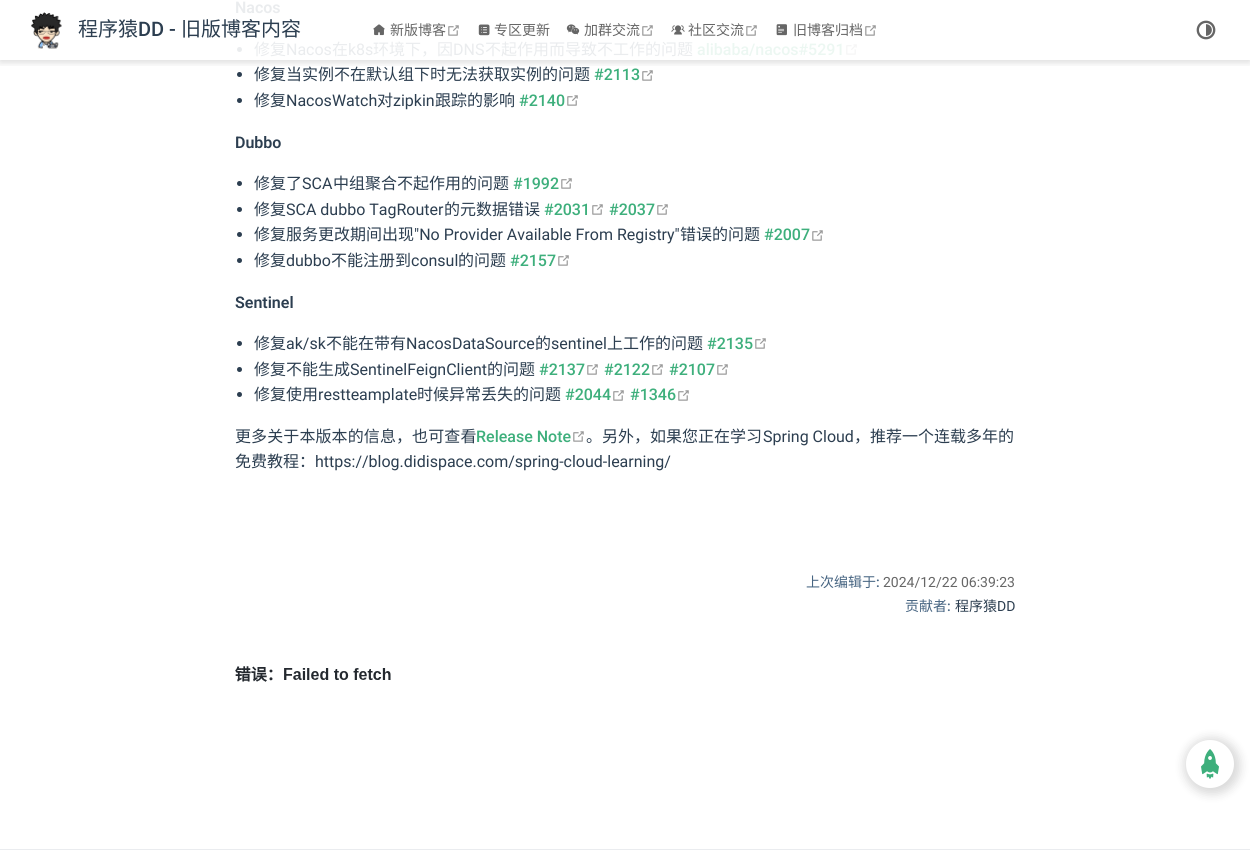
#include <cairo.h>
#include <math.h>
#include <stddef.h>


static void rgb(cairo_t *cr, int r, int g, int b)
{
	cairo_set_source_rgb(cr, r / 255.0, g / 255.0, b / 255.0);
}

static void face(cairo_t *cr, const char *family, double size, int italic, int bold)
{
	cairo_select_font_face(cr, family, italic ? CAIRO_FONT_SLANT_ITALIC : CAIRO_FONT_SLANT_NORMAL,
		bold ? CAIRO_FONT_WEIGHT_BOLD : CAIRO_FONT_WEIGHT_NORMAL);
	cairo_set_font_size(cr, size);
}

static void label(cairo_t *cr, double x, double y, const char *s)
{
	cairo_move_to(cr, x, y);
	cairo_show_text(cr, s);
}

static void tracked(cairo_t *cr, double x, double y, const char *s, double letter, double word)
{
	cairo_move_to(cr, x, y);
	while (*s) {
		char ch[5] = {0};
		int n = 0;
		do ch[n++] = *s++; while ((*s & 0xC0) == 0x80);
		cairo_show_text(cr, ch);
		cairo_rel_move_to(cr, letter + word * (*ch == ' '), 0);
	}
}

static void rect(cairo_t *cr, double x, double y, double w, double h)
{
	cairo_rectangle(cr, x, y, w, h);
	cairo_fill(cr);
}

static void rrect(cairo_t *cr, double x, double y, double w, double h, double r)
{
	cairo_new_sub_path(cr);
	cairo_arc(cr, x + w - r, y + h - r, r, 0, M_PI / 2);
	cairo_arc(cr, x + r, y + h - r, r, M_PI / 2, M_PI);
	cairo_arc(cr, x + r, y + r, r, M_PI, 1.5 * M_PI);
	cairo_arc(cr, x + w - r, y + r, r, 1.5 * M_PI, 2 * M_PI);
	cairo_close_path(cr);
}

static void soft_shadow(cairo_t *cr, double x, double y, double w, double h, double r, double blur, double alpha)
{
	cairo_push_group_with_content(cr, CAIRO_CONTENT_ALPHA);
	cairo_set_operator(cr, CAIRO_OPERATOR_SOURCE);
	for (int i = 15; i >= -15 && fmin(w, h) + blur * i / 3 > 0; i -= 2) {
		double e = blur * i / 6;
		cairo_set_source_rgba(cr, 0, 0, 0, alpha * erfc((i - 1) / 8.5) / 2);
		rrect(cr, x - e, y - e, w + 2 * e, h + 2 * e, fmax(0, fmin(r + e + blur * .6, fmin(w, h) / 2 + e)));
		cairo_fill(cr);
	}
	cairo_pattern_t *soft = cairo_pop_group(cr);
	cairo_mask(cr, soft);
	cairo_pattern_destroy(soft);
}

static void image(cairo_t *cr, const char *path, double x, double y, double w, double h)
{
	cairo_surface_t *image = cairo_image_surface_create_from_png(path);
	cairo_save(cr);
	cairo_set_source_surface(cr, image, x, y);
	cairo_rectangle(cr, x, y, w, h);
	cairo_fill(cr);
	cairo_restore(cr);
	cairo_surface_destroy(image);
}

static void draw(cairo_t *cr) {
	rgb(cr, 255, 255, 255);
	cairo_paint(cr);
	face(cr, "Roboto SemiBold", 16, 0, 0);
	rgb(cr, 234, 236, 238);
	label(cr, 235, 13, "Nacos");
	cairo_new_path(cr);
	cairo_arc(cr, 239.5, 49.5, 2.5, 0, 2 * M_PI);
	cairo_fill(cr);
	face(cr, "Noto Sans CJK SC", 16, 0, 0);
	label(cr, 254, 55, "修复");
	face(cr, "Roboto", 16, 0, 0);
	label(cr, 286, 55, "Nacos");
	face(cr, "Noto Sans CJK SC", 16, 0, 0);
	label(cr, 332, 55, "在");
	face(cr, "Roboto", 16, 0, 0);
	label(cr, 348, 55, "k8s");
	face(cr, "Noto Sans CJK SC", 16, 0, 0);
	label(cr, 373, 55, "环境下，因");
	face(cr, "Roboto", 16, 0, 0);
	label(cr, 453, 55, "DNS");
	face(cr, "Noto Sans CJK SC", 16, 0, 0);
	label(cr, 485, 55, "不起作用而导致不工作的问题");
	face(cr, "Roboto Medium", 16, 0, 0);
	rgb(cr, 236, 247, 242);
	label(cr, 697, 55, "alibaba/nacos#5291");
	image(cr, "image0.png", 846, 44, 11, 11);
	rgb(cr, 44, 62, 80);
	cairo_arc(cr, 239.5, 74.5, 2.5, 0, 2 * M_PI);
	cairo_fill(cr);
	face(cr, "Noto Sans CJK SC", 16, 0, 0);
	label(cr, 254, 80, "修复当实例不在默认组下时无法获取实例的问题");
	face(cr, "Roboto Medium", 16, 0, 0);
	rgb(cr, 62, 175, 124);
	label(cr, 594, 80, "#2113");
	image(cr, "image1.png", 642, 70, 11, 11);
	rgb(cr, 44, 62, 80);
	cairo_arc(cr, 239.5, 100.5, 2.5, 0, 2 * M_PI);
	cairo_fill(cr);
	face(cr, "Noto Sans CJK SC", 16, 0, 0);
	label(cr, 254, 106, "修复");
	face(cr, "Roboto", 16, 0, 0);
	label(cr, 286, 106, "NacosWatch");
	face(cr, "Noto Sans CJK SC", 16, 0, 0);
	label(cr, 377, 106, "对");
	face(cr, "Roboto", 16, 0, 0);
	label(cr, 393, 106, "zipkin");
	face(cr, "Noto Sans CJK SC", 16, 0, 0);
	label(cr, 435, 106, "跟踪的影响");
	face(cr, "Roboto Medium", 16, 0, 0);
	rgb(cr, 62, 175, 124);
	label(cr, 519, 106, "#2140");
	image(cr, "image1.png", 567, 95, 11, 11);
	face(cr, "Roboto SemiBold", 16, 0, 0);
	rgb(cr, 44, 62, 80);
	label(cr, 235, 148, "Dubbo");
	cairo_new_path(cr);
	cairo_arc(cr, 239.5, 183.5, 2.5, 0, 2 * M_PI);
	cairo_fill(cr);
	face(cr, "Noto Sans CJK SC", 16, 0, 0);
	label(cr, 254, 189, "修复了");
	face(cr, "Roboto", 16, 0, 0);
	label(cr, 302, 189, "SCA");
	face(cr, "Noto Sans CJK SC", 16, 0, 0);
	label(cr, 333, 189, "中组聚合不起作用的问题");
	face(cr, "Roboto Medium", 16, 0, 0);
	rgb(cr, 62, 175, 124);
	label(cr, 513, 189, "#1992");
	image(cr, "image1.png", 561, 178, 11, 11);
	rgb(cr, 44, 62, 80);
	cairo_arc(cr, 239.5, 209.5, 2.5, 0, 2 * M_PI);
	cairo_fill(cr);
	face(cr, "Noto Sans CJK SC", 16, 0, 0);
	label(cr, 254, 215, "修复");
	face(cr, "Roboto", 16, 0, 0);
	label(cr, 286, 215, "SCA dubbo TagRouter");
	face(cr, "Noto Sans CJK SC", 16, 0, 0);
	label(cr, 444, 215, "的元数据错误");
	face(cr, "Roboto Medium", 16, 0, 0);
	rgb(cr, 62, 175, 124);
	label(cr, 544, 215, "#2031");
	image(cr, "image1.png", 592, 204, 11, 11);
	label(cr, 609, 215, "#2037");
	image(cr, "image1.png", 657, 204, 11, 11);
	rgb(cr, 44, 62, 80);
	cairo_arc(cr, 239.5, 234.5, 2.5, 0, 2 * M_PI);
	cairo_fill(cr);
	face(cr, "Noto Sans CJK SC", 16, 0, 0);
	label(cr, 254, 240, "修复服务更改期间出现");
	face(cr, "Roboto", 16, 0, 0);
	label(cr, 414, 240, "\"No Provider Available From Registry\"");
	face(cr, "Noto Sans CJK SC", 16, 0, 0);
	label(cr, 680, 240, "错误的问题");
	face(cr, "Roboto Medium", 16, 0, 0);
	rgb(cr, 62, 175, 124);
	label(cr, 764, 240, "#2007");
	image(cr, "image1.png", 812, 230, 11, 11);
	rgb(cr, 44, 62, 80);
	cairo_arc(cr, 239.5, 260.5, 2.5, 0, 2 * M_PI);
	cairo_fill(cr);
	face(cr, "Noto Sans CJK SC", 16, 0, 0);
	label(cr, 254, 266, "修复");
	face(cr, "Roboto", 16, 0, 0);
	label(cr, 286, 266, "dubbo");
	face(cr, "Noto Sans CJK SC", 16, 0, 0);
	label(cr, 331, 266, "不能注册到");
	face(cr, "Roboto", 16, 0, 0);
	label(cr, 411, 266, "consul");
	face(cr, "Noto Sans CJK SC", 16, 0, 0);
	label(cr, 458, 266, "的问题");
	face(cr, "Roboto Medium", 16, 0, 0);
	rgb(cr, 62, 175, 124);
	label(cr, 510, 266, "#2157");
	image(cr, "image1.png", 558, 255, 11, 11);
	face(cr, "Roboto SemiBold", 16, 0, 0);
	rgb(cr, 44, 62, 80);
	label(cr, 235, 308, "Sentinel");
	cairo_new_path(cr);
	cairo_arc(cr, 239.5, 343.5, 2.5, 0, 2 * M_PI);
	cairo_fill(cr);
	face(cr, "Noto Sans CJK SC", 16, 0, 0);
	label(cr, 254, 349, "修复");
	face(cr, "Roboto", 16, 0, 0);
	label(cr, 286, 349, "ak/sk");
	face(cr, "Noto Sans CJK SC", 16, 0, 0);
	label(cr, 326, 349, "不能在带有");
	face(cr, "Roboto", 16, 0, 0);
	label(cr, 406, 349, "NacosDataSource");
	face(cr, "Noto Sans CJK SC", 16, 0, 0);
	label(cr, 535, 349, "的");
	face(cr, "Roboto", 16, 0, 0);
	label(cr, 551, 349, "sentinel");
	face(cr, "Noto Sans CJK SC", 16, 0, 0);
	label(cr, 607, 349, "上工作的问题");
	face(cr, "Roboto Medium", 16, 0, 0);
	rgb(cr, 62, 175, 124);
	label(cr, 707, 349, "#2135");
	image(cr, "image1.png", 755, 338, 11, 11);
	rgb(cr, 44, 62, 80);
	cairo_arc(cr, 239.5, 369.5, 2.5, 0, 2 * M_PI);
	cairo_fill(cr);
	face(cr, "Noto Sans CJK SC", 16, 0, 0);
	label(cr, 254, 375, "修复不能生成");
	face(cr, "Roboto", 16, 0, 0);
	label(cr, 350, 375, "SentinelFeignClient");
	face(cr, "Noto Sans CJK SC", 16, 0, 0);
	label(cr, 487, 375, "的问题");
	face(cr, "Roboto Medium", 16, 0, 0);
	rgb(cr, 62, 175, 124);
	label(cr, 539, 375, "#2137");
	image(cr, "image1.png", 587, 364, 11, 11);
	label(cr, 604, 375, "#2122");
	image(cr, "image1.png", 652, 364, 11, 11);
	label(cr, 669, 375, "#2107");
	image(cr, "image1.png", 717, 364, 11, 11);
	rgb(cr, 44, 62, 80);
	cairo_arc(cr, 239.5, 394.5, 2.5, 0, 2 * M_PI);
	cairo_fill(cr);
	face(cr, "Noto Sans CJK SC", 16, 0, 0);
	label(cr, 254, 400, "修复使用");
	face(cr, "Roboto", 16, 0, 0);
	label(cr, 318, 400, "restteamplate");
	face(cr, "Noto Sans CJK SC", 16, 0, 0);
	label(cr, 417, 400, "时候异常丢失的问题");
	face(cr, "Roboto Medium", 16, 0, 0);
	rgb(cr, 62, 175, 124);
	label(cr, 565, 400, "#2044");
	image(cr, "image1.png", 613, 390, 11, 11);
	label(cr, 630, 400, "#1346");
	image(cr, "image1.png", 678, 390, 11, 11);
	face(cr, "Noto Sans CJK SC", 16, 0, 0);
	rgb(cr, 44, 62, 80);
	tracked(cr, 235, 442, "更多关于本版本的信息，也可查看", 0.1, 0);
	face(cr, "Roboto Medium", 16, 0, 0);
	rgb(cr, 62, 175, 124);
	label(cr, 476, 442, "Release Note");
	image(cr, "image1.png", 573, 431, 11, 11);
	face(cr, "Noto Sans CJK SC", 16, 0, 0);
	rgb(cr, 44, 62, 80);
	label(cr, 586, 442, "。另外，如果您正在学习");
	face(cr, "Roboto", 16, 0, 0);
	label(cr, 763, 442, "Spring Cloud");
	face(cr, "Noto Sans CJK SC", 16, 0, 0);
	label(cr, 854, 442, "，推荐一个连载多年的");
	label(cr, 235, 467, "免费教程：");
	face(cr, "Roboto", 16, 0, 0);
	label(cr, 315, 467, "https://blog.didispace.com/spring-cloud-learning/");
	face(cr, "Noto Sans CJK SC", 14, 0, 0);
	rgb(cr, 71, 101, 130);
	label(cr, 806, 587, "上次编辑于");
	face(cr, "Roboto Medium", 14, 0, 0);
	label(cr, 876, 587, ":");
	face(cr, "Roboto", 14, 0, 0);
	rgb(cr, 102, 102, 102);
	label(cr, 883, 587, "2024/12/22 06:39:23");
	face(cr, "Noto Sans CJK SC", 14, 0, 0);
	rgb(cr, 71, 101, 130);
	label(cr, 905, 611, "贡献者");
	face(cr, "Roboto Medium", 14, 0, 0);
	label(cr, 947, 611, ":");
	face(cr, "Noto Sans CJK SC", 14, 0, 0);
	rgb(cr, 44, 62, 80);
	label(cr, 955, 611, "程序猿");
	face(cr, "Roboto", 14, 0, 0);
	label(cr, 997, 611, "DD");
	image(cr, "image2.png", 235, 666, 156, 16);
	cairo_save(cr);
	cairo_rectangle(cr, 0, 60, 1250, 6);
	cairo_clip(cr);
	rgb(cr, 0, 0, 0);
	soft_shadow(cr, 0, 2, 1250, 60, 0, 4, 0.15);
	cairo_restore(cr);
	image(cr, "image3.png", 31, 12, 31, 37);
	face(cr, "Noto Sans CJK SC", 20, 0, 0);
	label(cr, 78, 36, "程序猿");
	face(cr, "Roboto Medium", 20, 0, 0);
	label(cr, 138, 36, "DD -");
	face(cr, "Noto Sans CJK SC", 20, 0, 0);
	label(cr, 181, 36, "旧版博客内容");
	image(cr, "image4.png", 373, 24, 12, 12);
	face(cr, "Noto Sans CJK SC", 14, 0, 0);
	rgb(cr, 102, 102, 102);
	label(cr, 390, 35, "新版博客");
	image(cr, "image1.png", 448, 25, 11, 11);
	image(cr, "image5.png", 478, 24, 12, 12);
	label(cr, 494, 35, "专区更新");
	image(cr, "image6.png", 566, 24, 14, 11);
	label(cr, 584, 35, "加群交流");
	image(cr, "image1.png", 642, 25, 11, 11);
	image(cr, "image7.png", 671, 25, 14, 10);
	label(cr, 688, 35, "社区交流");
	image(cr, "image1.png", 746, 25, 11, 11);
	image(cr, "image8.png", 776, 24, 11, 12);
	label(cr, 793, 35, "旧博客归档");
	image(cr, "image1.png", 865, 25, 11, 11);
	image(cr, "image9.png", 1196, 20, 20, 20);
	rgb(cr, 234, 236, 239);
	rect(cr, 0, 849, 1250, 1);
	rgb(cr, 0, 0, 0);
	soft_shadow(cr, 1184, 738, 56, 56, 28, 5, 0.15);
	rgb(cr, 255, 255, 255);
	cairo_arc(cr, 1210, 764, 24, 0, 2 * M_PI);
	cairo_fill(cr);
	image(cr, "image10.png", 1201, 749, 18, 30);
}

int main(void) {
	cairo_surface_t *surface = cairo_image_surface_create(CAIRO_FORMAT_RGB24, 1250, 852);
	cairo_t *cr = cairo_create(surface);
	cairo_font_options_t *options = cairo_font_options_create();
	cairo_font_options_set_hint_metrics(options, CAIRO_HINT_METRICS_OFF);
	cairo_font_options_set_hint_style(options, CAIRO_HINT_STYLE_NONE);
	cairo_set_font_options(cr, options);
	cairo_set_miter_limit(cr, 4);
	draw(cr);
	cairo_surface_write_to_png(surface, "render.png");
	cairo_font_options_destroy(options);
	cairo_destroy(cr);
	cairo_surface_destroy(surface);
	return 0;
}
